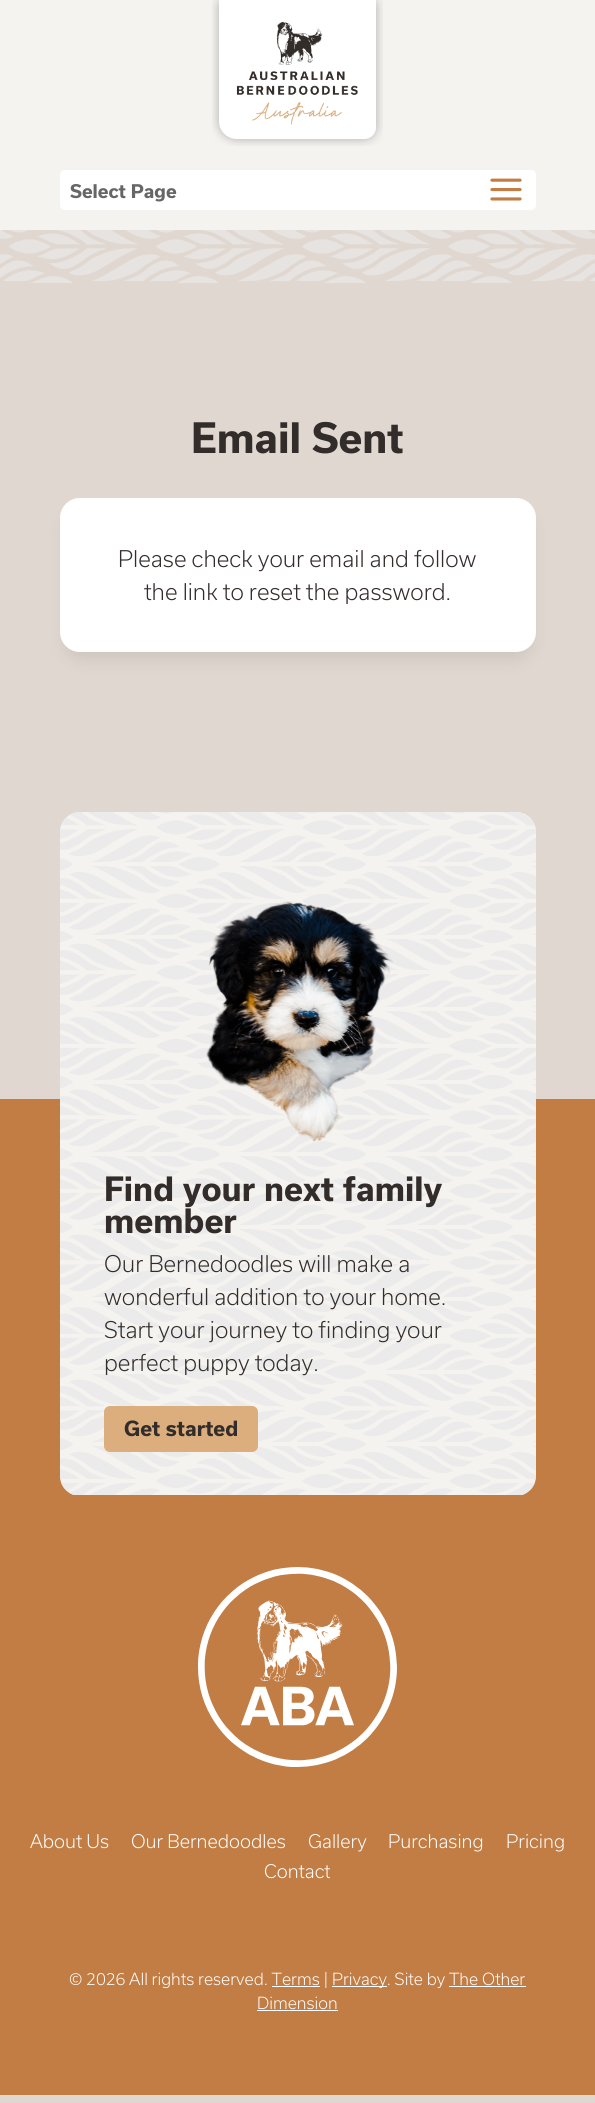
#include <cairo.h>
#include <math.h>
#include <stddef.h>


static void rgb(cairo_t *cr, int r, int g, int b)
{
	cairo_set_source_rgb(cr, r / 255.0, g / 255.0, b / 255.0);
}

static void face(cairo_t *cr, const char *family, double size, int italic, int bold)
{
	cairo_select_font_face(cr, family, italic ? CAIRO_FONT_SLANT_ITALIC : CAIRO_FONT_SLANT_NORMAL,
		bold ? CAIRO_FONT_WEIGHT_BOLD : CAIRO_FONT_WEIGHT_NORMAL);
	cairo_set_font_size(cr, size);
}

static void label(cairo_t *cr, double x, double y, const char *s)
{
	cairo_move_to(cr, x, y);
	cairo_show_text(cr, s);
}

static void rect(cairo_t *cr, double x, double y, double w, double h)
{
	cairo_rectangle(cr, x, y, w, h);
	cairo_fill(cr);
}

static void rrect(cairo_t *cr, double x, double y, double w, double h, double r)
{
	cairo_new_sub_path(cr);
	cairo_arc(cr, x + w - r, y + h - r, r, 0, M_PI / 2);
	cairo_arc(cr, x + r, y + h - r, r, M_PI / 2, M_PI);
	cairo_arc(cr, x + r, y + r, r, M_PI, 1.5 * M_PI);
	cairo_arc(cr, x + w - r, y + r, r, 1.5 * M_PI, 2 * M_PI);
	cairo_close_path(cr);
}

static void soft_shadow(cairo_t *cr, double x, double y, double w, double h, double r, double blur, double alpha)
{
	cairo_push_group_with_content(cr, CAIRO_CONTENT_ALPHA);
	cairo_set_operator(cr, CAIRO_OPERATOR_SOURCE);
	for (int i = 15; i >= -15 && fmin(w, h) + blur * i / 3 > 0; i -= 2) {
		double e = blur * i / 6;
		cairo_set_source_rgba(cr, 0, 0, 0, alpha * erfc((i - 1) / 8.5) / 2);
		rrect(cr, x - e, y - e, w + 2 * e, h + 2 * e, fmax(0, fmin(r + e + blur * .6, fmin(w, h) / 2 + e)));
		cairo_fill(cr);
	}
	cairo_pattern_t *soft = cairo_pop_group(cr);
	cairo_mask(cr, soft);
	cairo_pattern_destroy(soft);
}

static void image(cairo_t *cr, const char *path, double x, double y, double w, double h)
{
	cairo_surface_t *image = cairo_image_surface_create_from_png(path);
	cairo_save(cr);
	cairo_set_source_surface(cr, image, x, y);
	cairo_rectangle(cr, x, y, w, h);
	cairo_fill(cr);
	cairo_restore(cr);
	cairo_surface_destroy(image);
}

static void draw(cairo_t *cr) {
	rgb(cr, 224, 216, 208);
	cairo_paint(cr);
	rgb(cr, 245, 243, 240);
	rect(cr, 0, 0, 595, 230);
	image(cr, "image0.png", 212, 0, 171, 146);
	rgb(cr, 255, 255, 255);
	rrect(cr, 60, 170, 476, 40, 5);
	cairo_fill(cr);
	face(cr, "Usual", 18, 0, 1);
	rgb(cr, 102, 102, 102);
	label(cr, 70, 198, "Select Page");
	image(cr, "image1.png", 490, 178, 32, 23);
	image(cr, "image2.png", 0, 230, 595, 53);
	face(cr, "Usual", 40, 0, 1);
	rgb(cr, 50, 44, 42);
	label(cr, 191, 453, "Email Sent");
	rgb(cr, 0, 0, 0);
	soft_shadow(cr, 66, 516, 464, 142, 14, 9, 0.1);
	rgb(cr, 255, 255, 255);
	rrect(cr, 60, 498, 476, 154, 20);
	cairo_fill(cr);
	face(cr, "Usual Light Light", 22, 0, 0);
	rgb(cr, 50, 44, 42);
	label(cr, 118, 567, "Please check your email and follow");
	label(cr, 144, 600, "the link to reset the password.");
	rgb(cr, 194, 125, 68);
	rect(cr, 0, 1099, 595, 396);
	rgb(cr, 245, 243, 240);
	rrect(cr, 60, 812, 476, 684, 20);
	cairo_fill(cr);
	image(cr, "image3.png", 60, 812, 476, 683);
	image(cr, "image4.png", 206, 901, 188, 241);
	face(cr, "Usual", 32, 0, 1);
	rgb(cr, 50, 44, 42);
	label(cr, 104, 1201, "Find your next family");
	label(cr, 104, 1233, "member");
	face(cr, "Usual Light Light", 22, 0, 0);
	label(cr, 104, 1272, "Our Bernedoodles will make a");
	label(cr, 104, 1305, "wonderful addition to your home.");
	label(cr, 104, 1338, "Start your journey to finding your");
	label(cr, 104, 1371, "perfect puppy today.");
	rgb(cr, 220, 174, 125);
	rrect(cr, 104, 1406, 154, 46, 6);
	cairo_fill(cr);
	face(cr, "Usual", 20, 0, 1);
	rgb(cr, 50, 44, 42);
	label(cr, 124, 1436, "Get started");
	rgb(cr, 194, 125, 68);
	rect(cr, 0, 1495, 595, 600);
	image(cr, "image5.png", 198, 1567, 199, 200);
	face(cr, "Usual Light Light", 18, 0, 0);
	rgb(cr, 255, 255, 255);
	label(cr, 30, 1848, "About Us");
	label(cr, 131, 1848, "Our Bernedoodles");
	label(cr, 308, 1848, "Gallery");
	label(cr, 388, 1848, "Purchasing");
	label(cr, 506, 1848, "Pricing");
	label(cr, 264, 1878, "Contact");
	face(cr, "Usual Light Light", 16, 0, 0);
	label(cr, 69, 1985, "© 2026 All rights reserved. Terms |");
	rect(cr, 332, 1986, 55, 1);
	label(cr, 332, 1985, "Privacy. Site by The Other");
	rect(cr, 272, 1986, 48, 1);
	label(cr, 257, 2009, "Dimension");
	rect(cr, 449, 1986, 77, 1);
	rect(cr, 257, 2010, 81, 1);
}

int main(void) {
	cairo_surface_t *surface = cairo_image_surface_create(CAIRO_FORMAT_RGB24, 595, 2103);
	cairo_t *cr = cairo_create(surface);
	cairo_font_options_t *options = cairo_font_options_create();
	cairo_font_options_set_hint_metrics(options, CAIRO_HINT_METRICS_OFF);
	cairo_font_options_set_hint_style(options, CAIRO_HINT_STYLE_NONE);
	cairo_set_font_options(cr, options);
	cairo_set_miter_limit(cr, 4);
	draw(cr);
	cairo_surface_write_to_png(surface, "render.png");
	cairo_font_options_destroy(options);
	cairo_destroy(cr);
	cairo_surface_destroy(surface);
	return 0;
}
